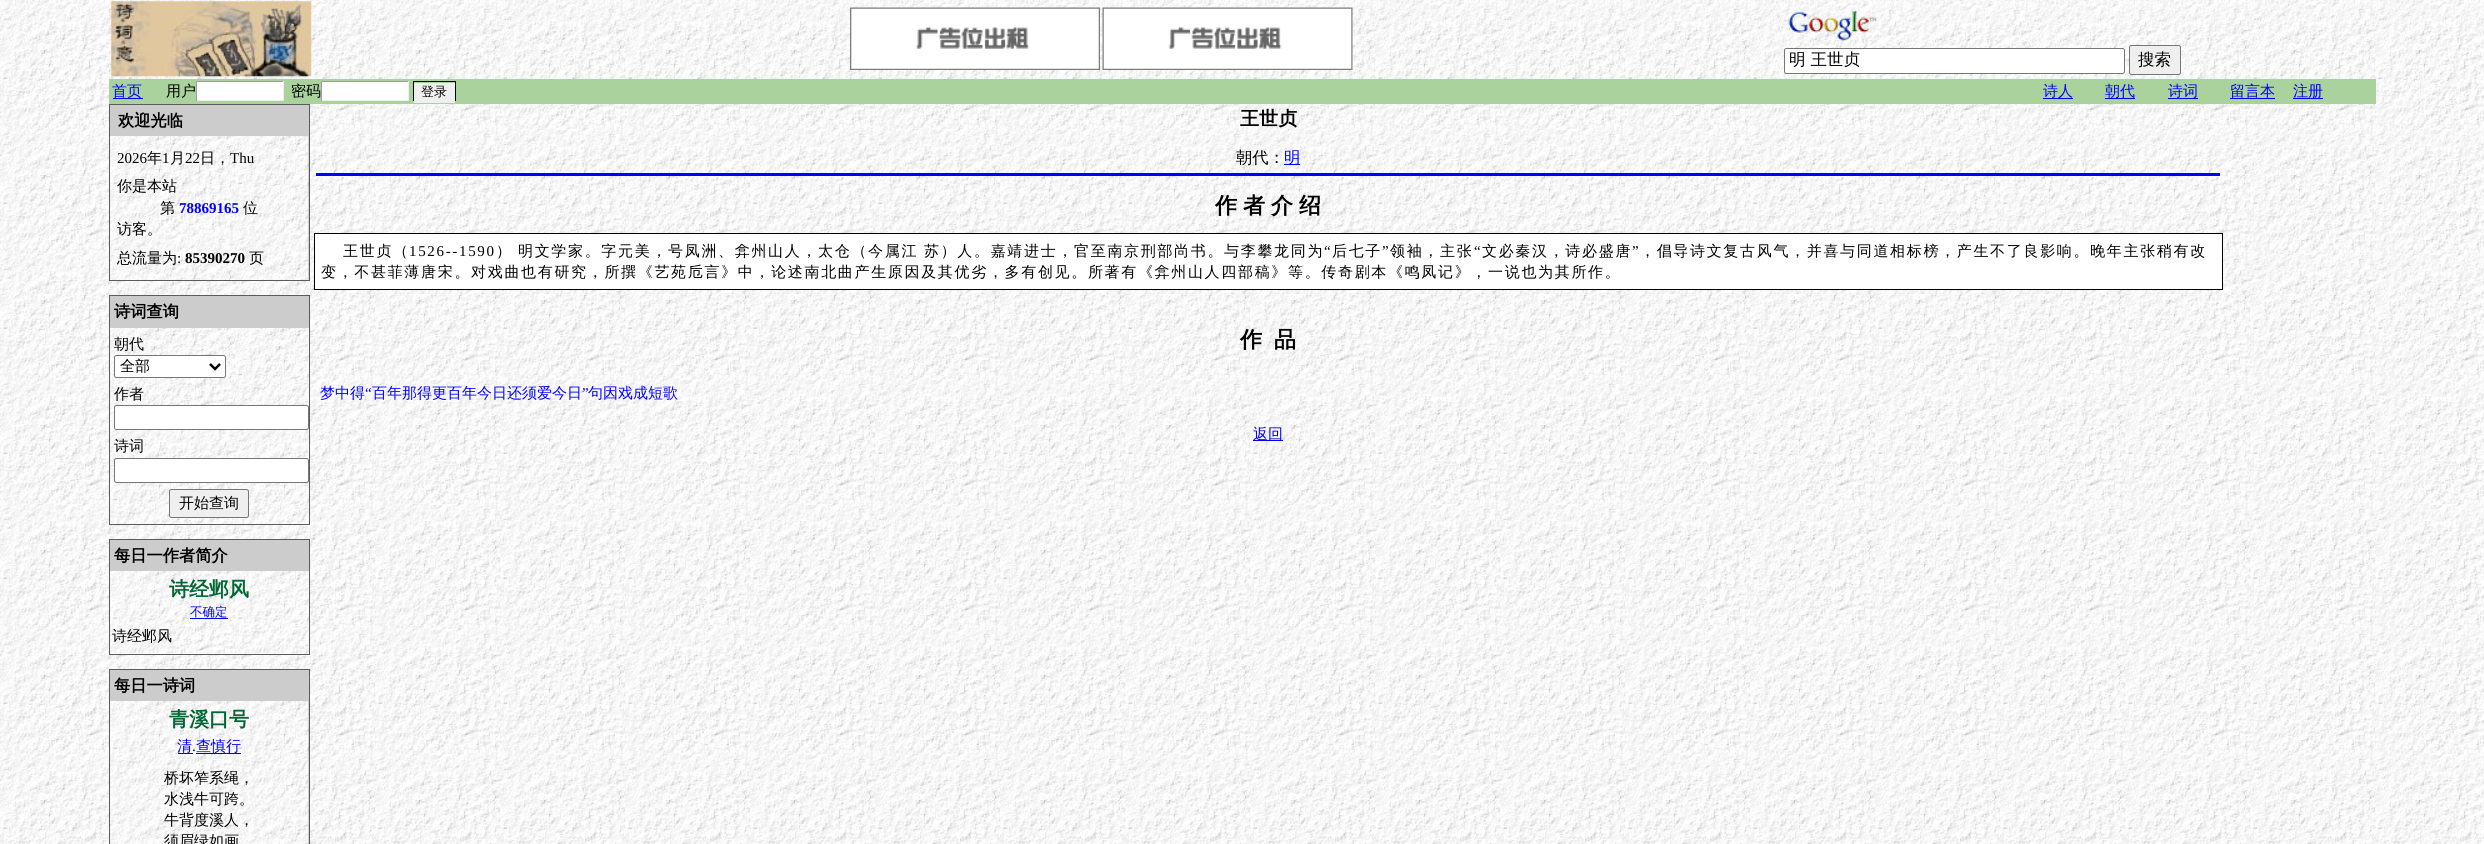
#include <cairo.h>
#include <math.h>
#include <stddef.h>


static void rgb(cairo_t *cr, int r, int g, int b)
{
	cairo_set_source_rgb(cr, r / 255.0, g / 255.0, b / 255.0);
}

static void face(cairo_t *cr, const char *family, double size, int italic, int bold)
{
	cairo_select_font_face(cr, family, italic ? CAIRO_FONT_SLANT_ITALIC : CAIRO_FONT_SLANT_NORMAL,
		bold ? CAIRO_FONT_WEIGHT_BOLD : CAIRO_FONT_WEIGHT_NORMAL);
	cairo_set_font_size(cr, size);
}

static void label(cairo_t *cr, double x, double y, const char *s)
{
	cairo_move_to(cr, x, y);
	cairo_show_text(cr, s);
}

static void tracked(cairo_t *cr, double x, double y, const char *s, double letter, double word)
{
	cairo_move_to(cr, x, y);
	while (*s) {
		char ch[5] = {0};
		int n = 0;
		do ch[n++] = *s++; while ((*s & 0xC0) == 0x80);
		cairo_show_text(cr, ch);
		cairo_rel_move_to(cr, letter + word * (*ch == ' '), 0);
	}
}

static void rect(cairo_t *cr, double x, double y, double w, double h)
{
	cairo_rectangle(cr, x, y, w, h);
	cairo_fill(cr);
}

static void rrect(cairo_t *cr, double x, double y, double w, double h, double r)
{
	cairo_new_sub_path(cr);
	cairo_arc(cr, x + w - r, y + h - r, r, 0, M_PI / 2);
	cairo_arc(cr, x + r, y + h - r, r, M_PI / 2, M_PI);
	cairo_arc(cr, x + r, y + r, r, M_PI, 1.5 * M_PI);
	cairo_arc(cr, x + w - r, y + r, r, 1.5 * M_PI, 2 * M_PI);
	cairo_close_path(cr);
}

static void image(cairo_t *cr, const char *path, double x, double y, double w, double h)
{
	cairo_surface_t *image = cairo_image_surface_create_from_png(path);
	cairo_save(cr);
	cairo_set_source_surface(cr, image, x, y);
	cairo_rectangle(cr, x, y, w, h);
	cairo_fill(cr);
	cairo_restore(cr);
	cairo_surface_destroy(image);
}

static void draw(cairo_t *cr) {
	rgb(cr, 255, 255, 255);
	cairo_paint(cr);
	image(cr, "image0.png", 0, 0, 2484, 844);
	image(cr, "image1.png", 111, 1, 201, 76);
	image(cr, "image2.png", 850, 7, 250, 63);
	image(cr, "image3.png", 1102, 7, 251, 63);
	image(cr, "image4.png", 1780, 1, 405, 78);
	image(cr, "image5.png", 1788, 11, 89, 30);
	rgb(cr, 255, 255, 255);
	rrect(cr, 1784.5, 48.5, 340, 25, 2);
	cairo_fill_preserve(cr);
	rgb(cr, 118, 118, 118);
	cairo_set_line_width(cr, 1);
	cairo_stroke(cr);
	face(cr, "WenQuanYi Zen Hei Medium", 16.5, 0, 0);
	rgb(cr, 0, 0, 0);
	label(cr, 1789, 65, "明 王世贞");
	rgb(cr, 239, 239, 239);
	rrect(cr, 2129.5, 45.5, 51, 29, 2);
	cairo_fill_preserve(cr);
	rgb(cr, 118, 118, 118);
	cairo_stroke(cr);
	rgb(cr, 0, 0, 0);
	label(cr, 2138, 65, "搜索");
	rgb(cr, 169, 210, 157);
	rect(cr, 109, 79, 2267, 25);
	rgb(cr, 0, 0, 238);
	rect(cr, 113, 98, 30, 1);
	face(cr, "WenQuanYi Zen Hei Medium", 15, 0, 0);
	rgb(cr, 0, 0, 255);
	label(cr, 112, 96, "首页");
	rgb(cr, 0, 0, 0);
	label(cr, 166, 96, "用户");
	rgb(cr, 255, 255, 255);
	rect(cr, 197, 82, 86, 18);
	rgb(cr, 159, 159, 159);
	rect(cr, 196, 81, 88, 1);
	rgb(cr, 238, 238, 238);
	rect(cr, 283, 81, 1, 20);
	rect(cr, 196, 100, 88, 1);
	rgb(cr, 159, 159, 159);
	rect(cr, 196, 81, 1, 20);
	rgb(cr, 0, 0, 0);
	label(cr, 291, 96, "密码");
	rgb(cr, 255, 255, 255);
	rect(cr, 322, 82, 86, 18);
	rgb(cr, 159, 159, 159);
	rect(cr, 321, 81, 88, 1);
	rgb(cr, 238, 238, 238);
	rect(cr, 408, 81, 1, 20);
	rect(cr, 321, 100, 88, 1);
	rgb(cr, 159, 159, 159);
	rect(cr, 321, 81, 1, 20);
	cairo_rectangle(cr, 413.5, 81.5, 42, 19);
	rgb(cr, 0, 0, 0);
	cairo_stroke(cr);
	rgb(cr, 239, 239, 239);
	rect(cr, 414, 83, 41, 20);
	face(cr, "WenQuanYi Zen Hei Medium", 13, 0, 0);
	rgb(cr, 0, 0, 0);
	label(cr, 421, 96, "登录");
	rgb(cr, 0, 0, 238);
	rect(cr, 2043, 98, 30, 1);
	face(cr, "WenQuanYi Zen Hei Medium", 15, 0, 0);
	rgb(cr, 0, 0, 255);
	label(cr, 2043, 96, "诗人");
	rgb(cr, 0, 0, 238);
	rect(cr, 2105, 98, 30, 1);
	rgb(cr, 0, 0, 255);
	label(cr, 2105, 96, "朝代");
	label(cr, 2168, 96, "诗词");
	rgb(cr, 0, 0, 238);
	rect(cr, 2168, 98, 30, 1);
	rgb(cr, 0, 0, 255);
	label(cr, 2230, 96, "留言本");
	rgb(cr, 0, 0, 238);
	rect(cr, 2230, 98, 45, 1);
	rgb(cr, 0, 0, 255);
	label(cr, 2293, 96, "注册");
	rgb(cr, 0, 0, 238);
	rect(cr, 2293, 98, 30, 1);
	rgb(cr, 92, 92, 92);
	rect(cr, 109, 104, 201, 177);
	image(cr, "image6.png", 110, 136, 199, 144);
	rgb(cr, 204, 204, 204);
	rect(cr, 110, 105, 199, 31);
	face(cr, "WenQuanYi Zen Hei", 16.25, 0, 1);
	rgb(cr, 0, 0, 0);
	label(cr, 118, 126, "欢迎光临");
	face(cr, "Liberation Serif", 15, 0, 0);
	label(cr, 117, 163, "2026");
	face(cr, "WenQuanYi Zen Hei Medium", 15, 0, 0);
	label(cr, 147, 163, "年");
	face(cr, "Liberation Serif", 15, 0, 0);
	label(cr, 162, 163, "1");
	face(cr, "WenQuanYi Zen Hei Medium", 15, 0, 0);
	label(cr, 170, 163, "月");
	face(cr, "Liberation Serif", 15, 0, 0);
	label(cr, 185, 163, "22");
	face(cr, "WenQuanYi Zen Hei Medium", 15, 0, 0);
	label(cr, 200, 163, "日，");
	face(cr, "Liberation Serif", 15, 0, 0);
	label(cr, 230, 163, "Thu");
	face(cr, "WenQuanYi Zen Hei Medium", 15, 0, 0);
	label(cr, 117, 191, "你是本站");
	label(cr, 160, 213, "第");
	face(cr, "Liberation Serif", 15, 0, 1);
	rgb(cr, 0, 0, 255);
	label(cr, 179, 213, "78869165");
	face(cr, "WenQuanYi Zen Hei Medium", 15, 0, 0);
	rgb(cr, 0, 0, 0);
	label(cr, 243, 213, "位");
	label(cr, 117, 234, "访客。");
	label(cr, 117, 263, "总流量为");
	face(cr, "Liberation Serif", 15, 0, 0);
	label(cr, 177, 263, ":");
	face(cr, "Liberation Serif", 15, 0, 1);
	label(cr, 185, 263, "85390270");
	face(cr, "WenQuanYi Zen Hei Medium", 15, 0, 0);
	label(cr, 249, 263, "页");
	rgb(cr, 92, 92, 92);
	rect(cr, 109, 295, 201, 230);
	rgb(cr, 255, 255, 255);
	rect(cr, 110, 328, 199, 196);
	image(cr, "image7.png", 110, 328, 199, 196);
	rgb(cr, 204, 204, 204);
	rect(cr, 110, 296, 199, 32);
	face(cr, "WenQuanYi Zen Hei", 16.25, 0, 1);
	rgb(cr, 0, 0, 0);
	label(cr, 114, 317, "诗词查询");
	face(cr, "WenQuanYi Zen Hei Medium", 15, 0, 0);
	label(cr, 114, 349, "朝代");
	rgb(cr, 255, 255, 255);
	rrect(cr, 114.5, 355.5, 111, 22, 2);
	cairo_fill_preserve(cr);
	rgb(cr, 118, 118, 118);
	cairo_stroke(cr);
	cairo_new_path(cr);
	cairo_move_to(cr, 210, 364);
	cairo_line_to(cr, 215, 369);
	cairo_line_to(cr, 220, 364);
	rgb(cr, 0, 0, 0);
	cairo_set_line_width(cr, 2.5);
	cairo_stroke(cr);
	label(cr, 120, 371, "全部");
	label(cr, 114, 399, "作者");
	rgb(cr, 255, 255, 255);
	rrect(cr, 114.5, 405.5, 194, 24, 2);
	cairo_fill_preserve(cr);
	rgb(cr, 118, 118, 118);
	cairo_set_line_width(cr, 1);
	cairo_stroke(cr);
	rgb(cr, 0, 0, 0);
	label(cr, 114, 451, "诗词");
	rgb(cr, 255, 255, 255);
	rrect(cr, 114.5, 458.5, 194, 24, 2);
	cairo_fill_preserve(cr);
	rgb(cr, 118, 118, 118);
	cairo_stroke(cr);
	rgb(cr, 239, 239, 239);
	rrect(cr, 169.5, 489.5, 79, 28, 2);
	cairo_fill_preserve(cr);
	rgb(cr, 118, 118, 118);
	cairo_stroke(cr);
	rgb(cr, 0, 0, 0);
	label(cr, 179, 508, "开始查询");
	rgb(cr, 92, 92, 92);
	rect(cr, 109, 539, 201, 116);
	rgb(cr, 255, 255, 255);
	rect(cr, 110, 571, 199, 83);
	image(cr, "image8.png", 110, 571, 199, 83);
	rgb(cr, 204, 204, 204);
	rect(cr, 110, 540, 199, 31);
	face(cr, "WenQuanYi Zen Hei", 16.25, 0, 1);
	rgb(cr, 0, 0, 0);
	label(cr, 114, 561, "每日一作者简介");
	face(cr, "WenQuanYi Zen Hei", 20, 0, 1);
	rgb(cr, 0, 102, 51);
	label(cr, 169, 596, "诗经邺风");
	face(cr, "WenQuanYi Zen Hei Medium", 12.5, 0, 0);
	rgb(cr, 0, 0, 255);
	label(cr, 190, 616, "不确定");
	rgb(cr, 0, 0, 238);
	rect(cr, 190, 618, 38, 1);
	face(cr, "WenQuanYi Zen Hei Medium", 15, 0, 0);
	rgb(cr, 0, 0, 0);
	label(cr, 112, 641, "诗经邺风");
	rgb(cr, 92, 92, 92);
	rect(cr, 109, 669, 201, 175);
	image(cr, "image9.png", 110, 701, 199, 143);
	rgb(cr, 204, 204, 204);
	rect(cr, 110, 670, 199, 31);
	face(cr, "WenQuanYi Zen Hei", 16.25, 0, 1);
	rgb(cr, 0, 0, 0);
	label(cr, 114, 691, "每日一诗词");
	face(cr, "WenQuanYi Zen Hei", 20, 0, 1);
	rgb(cr, 0, 102, 51);
	label(cr, 169, 726, "青溪口号");
	face(cr, "WenQuanYi Zen Hei Medium", 15, 0, 0);
	rgb(cr, 0, 0, 255);
	label(cr, 177, 751, "清");
	rgb(cr, 0, 0, 238);
	rect(cr, 178, 753, 15, 1);
	face(cr, "Liberation Serif", 15, 0, 0);
	rgb(cr, 0, 0, 0);
	label(cr, 192, 751, ".");
	rgb(cr, 0, 0, 238);
	rect(cr, 196, 753, 45, 1);
	face(cr, "WenQuanYi Zen Hei Medium", 15, 0, 0);
	rgb(cr, 0, 0, 255);
	label(cr, 196, 751, "查慎行");
	rgb(cr, 0, 0, 0);
	label(cr, 164, 783, "桥坏笮系绳，");
	label(cr, 164, 804, "水浅牛可跨。");
	label(cr, 164, 825, "牛背度溪人，");
	label(cr, 164, 846, "须眉绿如画");
	face(cr, "WenQuanYi Zen Hei", 19, 0, 1);
	label(cr, 1240, 125, "王世贞");
	face(cr, "WenQuanYi Zen Hei Medium", 16.25, 0, 0);
	label(cr, 1236, 163, "朝代：");
	rgb(cr, 0, 0, 238);
	rect(cr, 1284, 164, 16, 1);
	rgb(cr, 0, 0, 255);
	label(cr, 1284, 163, "明");
	rect(cr, 316, 173, 1904, 3);
	face(cr, "WenQuanYi Zen Hei", 22, 0, 1);
	rgb(cr, 0, 0, 0);
	label(cr, 1215, 213, "作");
	label(cr, 1243, 213, "者");
	label(cr, 1271, 213, "介");
	label(cr, 1299, 213, "绍");
	rgb(cr, 255, 255, 255);
	cairo_rectangle(cr, 314.5, 233.5, 1908, 56);
	cairo_fill_preserve(cr);
	rgb(cr, 0, 0, 0);
	cairo_stroke(cr);
	face(cr, "WenQuanYi Zen Hei Medium", 15, 0, 0);
	tracked(cr, 343, 256, "王世贞（", 1.67, 0);
	face(cr, "Liberation Serif", 15, 0, 0);
	tracked(cr, 409, 256, "1526--1590", 1.67, 0);
	face(cr, "WenQuanYi Zen Hei Medium", 15, 0, 0);
	tracked(cr, 496, 256, "）", 1.67, 0);
	tracked(cr, 518, 256, "明文学家。字元美，号凤洲、弇州山人，太仓（今属江", 1.67, 0);
	tracked(cr, 924, 256, "苏）人。嘉靖进士，官至南京刑部尚书。与李攀龙同为", 1.67, 0);
	face(cr, "Liberation Serif", 15, 0, 0);
	tracked(cr, 1324, 256, "“", 1.67, 0);
	face(cr, "WenQuanYi Zen Hei Medium", 15, 0, 0);
	tracked(cr, 1332, 256, "后七子", 1.67, 0);
	face(cr, "Liberation Serif", 15, 0, 0);
	tracked(cr, 1382, 256, "”", 1.67, 0);
	face(cr, "WenQuanYi Zen Hei Medium", 15, 0, 0);
	tracked(cr, 1390, 256, "领袖，主张", 1.67, 0);
	face(cr, "Liberation Serif", 15, 0, 0);
	tracked(cr, 1474, 256, "“", 1.67, 0);
	face(cr, "WenQuanYi Zen Hei Medium", 15, 0, 0);
	tracked(cr, 1482, 256, "文必秦汉，诗必盛唐", 1.67, 0);
	face(cr, "Liberation Serif", 15, 0, 0);
	tracked(cr, 1632, 256, "”", 1.67, 0);
	face(cr, "WenQuanYi Zen Hei Medium", 15, 0, 0);
	tracked(cr, 1640, 256, "，倡导诗文复古风气，并喜与同道相标榜，产生不了良影响。晚年主张稍有改", 1.67, 0);
	tracked(cr, 321, 277, "变，不甚菲薄唐宋。对戏曲也有研究，所撰《艺苑卮言》中，论述南北曲产生原因及其优劣，多有创见。所著有《弇州山人四部稿》等。传奇剧本《鸣凤记》，一说也为其所作。", 1.67, 0);
	face(cr, "WenQuanYi Zen Hei", 22, 0, 1);
	label(cr, 1240, 347, "作");
	label(cr, 1274, 347, "品");
	face(cr, "WenQuanYi Zen Hei Medium", 15, 0, 0);
	rgb(cr, 0, 0, 255);
	label(cr, 320, 398, "梦中得");
	face(cr, "Liberation Serif", 15, 0, 0);
	label(cr, 365, 398, "“");
	face(cr, "WenQuanYi Zen Hei Medium", 15, 0, 0);
	label(cr, 372, 398, "百年那得更百年今日还须爱今日");
	face(cr, "Liberation Serif", 15, 0, 0);
	label(cr, 582, 398, "”");
	face(cr, "WenQuanYi Zen Hei Medium", 15, 0, 0);
	label(cr, 588, 398, "句因戏成短歌");
	rgb(cr, 0, 0, 238);
	rect(cr, 1253, 440, 30, 1);
	label(cr, 1253, 439, "返回");
}

int main(void) {
	cairo_surface_t *surface = cairo_image_surface_create(CAIRO_FORMAT_RGB24, 2484, 844);
	cairo_t *cr = cairo_create(surface);
	cairo_font_options_t *options = cairo_font_options_create();
	cairo_font_options_set_hint_metrics(options, CAIRO_HINT_METRICS_OFF);
	cairo_font_options_set_hint_style(options, CAIRO_HINT_STYLE_NONE);
	cairo_set_font_options(cr, options);
	cairo_set_miter_limit(cr, 4);
	draw(cr);
	cairo_surface_write_to_png(surface, "render.png");
	cairo_font_options_destroy(options);
	cairo_destroy(cr);
	cairo_surface_destroy(surface);
	return 0;
}
